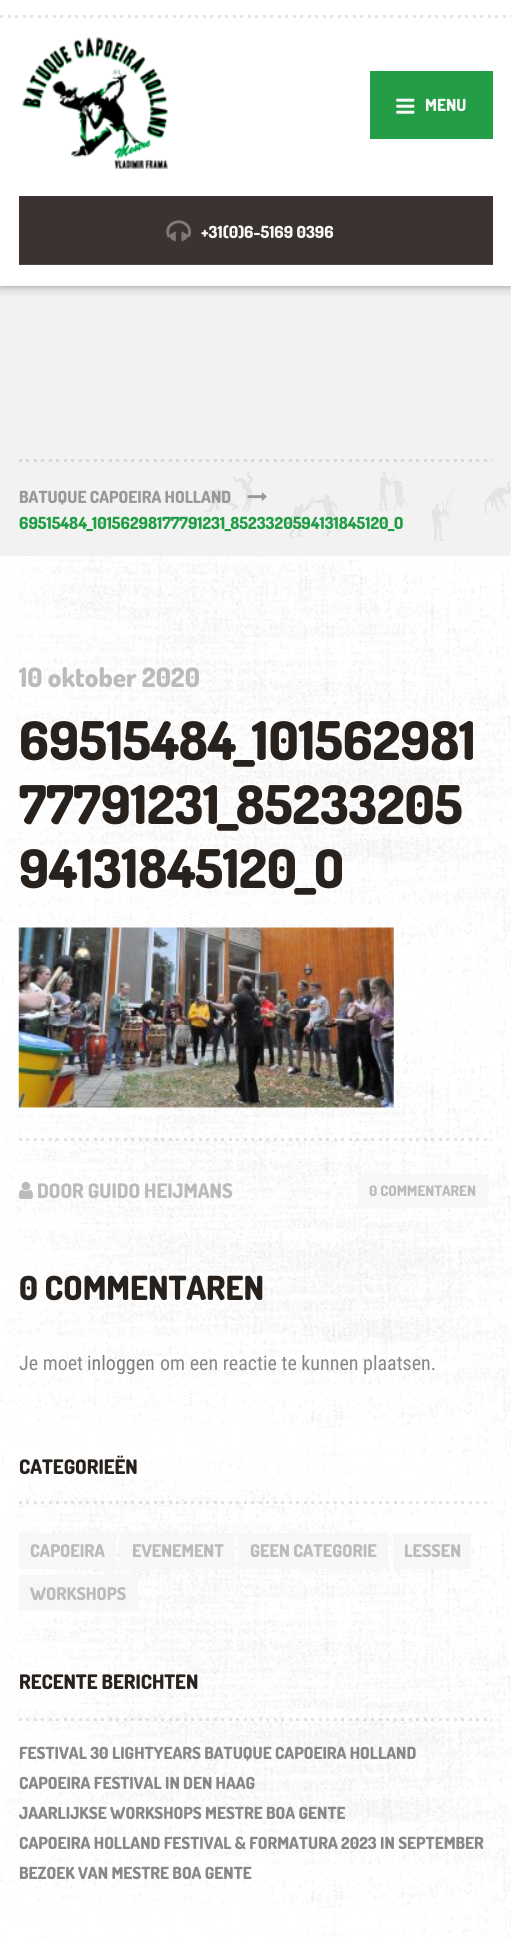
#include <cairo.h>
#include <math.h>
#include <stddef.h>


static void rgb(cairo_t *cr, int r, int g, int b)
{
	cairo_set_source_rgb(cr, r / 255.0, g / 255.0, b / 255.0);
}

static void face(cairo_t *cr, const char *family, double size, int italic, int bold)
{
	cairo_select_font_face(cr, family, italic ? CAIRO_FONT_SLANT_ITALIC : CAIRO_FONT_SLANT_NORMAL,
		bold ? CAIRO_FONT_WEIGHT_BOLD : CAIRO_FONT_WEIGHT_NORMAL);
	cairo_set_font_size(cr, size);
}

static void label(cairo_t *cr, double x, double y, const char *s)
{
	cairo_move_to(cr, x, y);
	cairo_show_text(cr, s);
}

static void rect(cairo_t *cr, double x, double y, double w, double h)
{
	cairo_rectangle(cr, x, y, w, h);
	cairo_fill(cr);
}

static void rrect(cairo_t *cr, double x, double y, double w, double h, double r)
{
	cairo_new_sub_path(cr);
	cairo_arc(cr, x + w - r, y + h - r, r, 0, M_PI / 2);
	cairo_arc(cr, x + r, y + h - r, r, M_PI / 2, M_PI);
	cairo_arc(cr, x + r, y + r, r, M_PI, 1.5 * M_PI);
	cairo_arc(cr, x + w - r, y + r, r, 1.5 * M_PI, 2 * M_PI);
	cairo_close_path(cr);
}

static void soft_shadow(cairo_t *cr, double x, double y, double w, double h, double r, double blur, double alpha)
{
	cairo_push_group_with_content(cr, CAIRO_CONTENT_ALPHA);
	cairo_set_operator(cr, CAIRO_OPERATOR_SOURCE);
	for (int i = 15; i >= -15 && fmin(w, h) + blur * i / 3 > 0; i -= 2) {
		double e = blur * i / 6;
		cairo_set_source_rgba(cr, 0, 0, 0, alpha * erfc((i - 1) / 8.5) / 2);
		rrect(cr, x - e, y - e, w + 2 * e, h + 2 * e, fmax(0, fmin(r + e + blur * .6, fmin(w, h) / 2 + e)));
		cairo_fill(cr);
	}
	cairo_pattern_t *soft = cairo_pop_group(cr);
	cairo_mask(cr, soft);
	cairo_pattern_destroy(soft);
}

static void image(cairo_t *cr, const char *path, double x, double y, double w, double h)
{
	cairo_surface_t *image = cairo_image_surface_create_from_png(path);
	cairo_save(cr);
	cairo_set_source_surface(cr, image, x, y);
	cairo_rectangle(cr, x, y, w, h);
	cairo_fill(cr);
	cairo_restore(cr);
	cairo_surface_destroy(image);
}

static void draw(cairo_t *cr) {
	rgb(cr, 255, 255, 255);
	cairo_paint(cr);
	image(cr, "image0.png", 0, 556, 511, 1383);
	rgb(cr, 242, 242, 242);
	rect(cr, 0, 286, 511, 270);
	rgb(cr, 0, 0, 0);
	soft_shadow(cr, 0, 4, 511, 286, 0, 4.5, 0.15);
	soft_shadow(cr, 0, -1, 511, 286, 0, 2.5, 0.35);
	rgb(cr, 255, 255, 255);
	rect(cr, 0, 0, 511, 286);
	image(cr, "image1.png", 0, 15, 511, 3);
	image(cr, "image2.png", 22, 37, 146, 132);
	rgb(cr, 35, 158, 70);
	rect(cr, 370, 71, 123, 68);
	image(cr, "image3.png", 396, 98, 19, 16);
	face(cr, "Dosis ExtraBold", 16.7, 0, 0);
	rgb(cr, 247, 247, 247);
	label(cr, 425, 111, "MENU");
	rgb(cr, 59, 51, 49);
	rect(cr, 19, 196, 474, 68);
	rgb(cr, 81, 70, 68);
	rect(cr, 19, 264, 474, 1);
	image(cr, "image4.png", 166, 220, 25, 22);
	rgb(cr, 247, 247, 247);
	label(cr, 201, 238, "+31(0)6-5169 0396");
	image(cr, "image5.png", 205, 471, 306, 70);
	image(cr, "image6.png", 19, 459, 473, 3);
	rgb(cr, 153, 153, 153);
	label(cr, 19, 503, "BATUQUE CAPOEIRA HOLLAND");
	image(cr, "image7.png", 247, 492, 20, 9);
	rgb(cr, 35, 158, 70);
	label(cr, 19, 529, "69515484_10156298177791231_8523320594131845120_O");
	face(cr, "Dosis ExtraBold", 26.75, 0, 0);
	rgb(cr, 187, 187, 187);
	label(cr, 19, 687, "10 oktober 2020");
	face(cr, "Dosis ExtraBold", 53.25, 0, 0);
	rgb(cr, 40, 34, 30);
	label(cr, 19, 760, "69515484_101562981");
	label(cr, 19, 824, "77791231_85233205");
	label(cr, 19, 888, "94131845120_O");
	image(cr, "image8.png", 18, 927, 376, 181);
	image(cr, "image9.png", 19, 1138, 473, 3);
	image(cr, "image10.png", 18, 1181, 15, 18);
	face(cr, "Dosis ExtraBold", 20, 0, 0);
	rgb(cr, 187, 187, 187);
	label(cr, 37, 1198, "DOOR GUIDO HEIJMANS");
	rgb(cr, 247, 247, 247);
	rect(cr, 359, 1174, 129, 34);
	face(cr, "Dosis ExtraBold", 14.5, 0, 0);
	rgb(cr, 187, 187, 187);
	label(cr, 369, 1196, "0 COMMENTAREN");
	face(cr, "Dosis ExtraBold", 33.25, 0, 0);
	rgb(cr, 40, 34, 30);
	label(cr, 19, 1300, "0 COMMENTAREN");
	face(cr, "Roboto Condensed", 20, 0, 0);
	rgb(cr, 136, 136, 136);
	label(cr, 19, 1370, "Je moet");
	rgb(cr, 124, 124, 124);
	label(cr, 87, 1370, "inloggen");
	rgb(cr, 136, 136, 136);
	label(cr, 160, 1370, "om een reactie te kunnen plaatsen.");
	face(cr, "Dosis ExtraBold", 20, 0, 0);
	rgb(cr, 40, 34, 30);
	label(cr, 19, 1474, "CATEGORIEËN");
	image(cr, "image11.png", 19, 1501, 473, 3);
	rgb(cr, 247, 247, 247);
	rect(cr, 19, 1533, 97, 36);
	face(cr, "Dosis ExtraBold", 17.5, 0, 0);
	rgb(cr, 187, 187, 187);
	label(cr, 30, 1557, "CAPOEIRA");
	rgb(cr, 247, 247, 247);
	rect(cr, 120, 1533, 114, 36);
	rgb(cr, 187, 187, 187);
	label(cr, 132, 1557, "EVENEMENT");
	rgb(cr, 247, 247, 247);
	rect(cr, 239, 1533, 149, 36);
	rgb(cr, 187, 187, 187);
	label(cr, 250, 1557, "GEEN CATEGORIE");
	rgb(cr, 247, 247, 247);
	rect(cr, 393, 1533, 78, 36);
	rgb(cr, 187, 187, 187);
	label(cr, 404, 1557, "LESSEN");
	rgb(cr, 247, 247, 247);
	rect(cr, 19, 1575, 119, 36);
	rgb(cr, 187, 187, 187);
	label(cr, 30, 1600, "WORKSHOPS");
	face(cr, "Dosis ExtraBold", 20, 0, 0);
	rgb(cr, 40, 34, 30);
	label(cr, 19, 1689, "RECENTE BERICHTEN");
	image(cr, "image12.png", 19, 1718, 473, 3);
	face(cr, "Dosis ExtraBold", 16.7, 0, 0);
	rgb(cr, 136, 136, 136);
	label(cr, 19, 1759, "FESTIVAL 30 LIGHTYEARS BATUQUE CAPOEIRA HOLLAND");
	label(cr, 19, 1789, "CAPOEIRA FESTIVAL IN DEN HAAG");
	label(cr, 19, 1819, "JAARLIJKSE WORKSHOPS MESTRE BOA GENTE");
	label(cr, 19, 1849, "CAPOEIRA HOLLAND FESTIVAL & FORMATURA 2023 IN SEPTEMBER");
	label(cr, 19, 1879, "BEZOEK VAN MESTRE BOA GENTE");
}

int main(void) {
	cairo_surface_t *surface = cairo_image_surface_create(CAIRO_FORMAT_RGB24, 511, 1939);
	cairo_t *cr = cairo_create(surface);
	cairo_font_options_t *options = cairo_font_options_create();
	cairo_font_options_set_hint_metrics(options, CAIRO_HINT_METRICS_OFF);
	cairo_font_options_set_hint_style(options, CAIRO_HINT_STYLE_NONE);
	cairo_set_font_options(cr, options);
	cairo_set_miter_limit(cr, 4);
	draw(cr);
	cairo_surface_write_to_png(surface, "render.png");
	cairo_font_options_destroy(options);
	cairo_destroy(cr);
	cairo_surface_destroy(surface);
	return 0;
}
